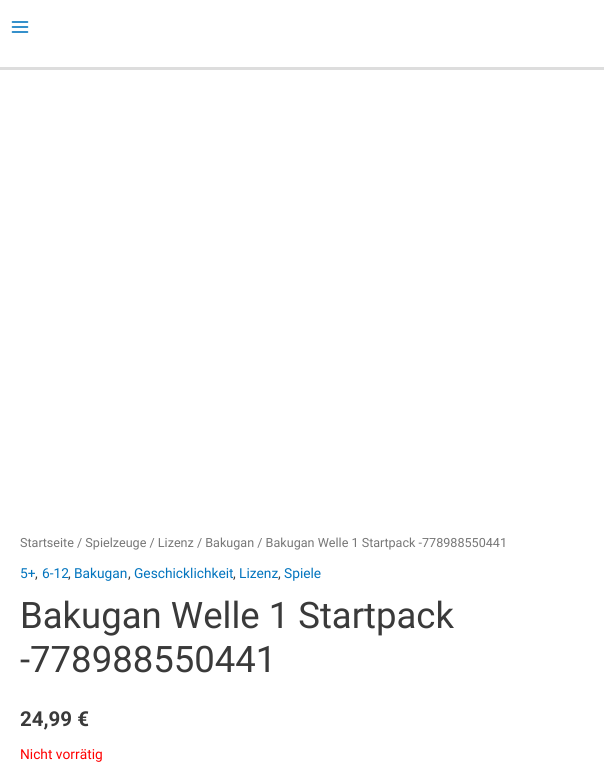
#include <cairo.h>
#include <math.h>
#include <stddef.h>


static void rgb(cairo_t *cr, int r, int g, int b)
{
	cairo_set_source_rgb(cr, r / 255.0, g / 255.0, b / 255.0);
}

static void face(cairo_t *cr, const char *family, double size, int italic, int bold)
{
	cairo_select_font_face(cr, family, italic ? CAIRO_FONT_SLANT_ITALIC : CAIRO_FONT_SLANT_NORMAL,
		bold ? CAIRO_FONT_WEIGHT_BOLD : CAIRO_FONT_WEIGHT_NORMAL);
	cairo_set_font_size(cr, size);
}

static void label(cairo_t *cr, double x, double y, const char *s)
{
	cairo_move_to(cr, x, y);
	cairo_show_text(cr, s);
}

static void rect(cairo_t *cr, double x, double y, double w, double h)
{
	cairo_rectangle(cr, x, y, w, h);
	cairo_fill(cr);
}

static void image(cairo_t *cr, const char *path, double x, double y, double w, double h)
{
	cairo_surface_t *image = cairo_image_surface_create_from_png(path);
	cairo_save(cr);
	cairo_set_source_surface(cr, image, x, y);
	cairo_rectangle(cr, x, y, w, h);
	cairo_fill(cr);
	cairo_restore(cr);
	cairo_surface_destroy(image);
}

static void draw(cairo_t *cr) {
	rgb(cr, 255, 255, 255);
	cairo_paint(cr);
	rgb(cr, 221, 221, 221);
	rect(cr, 0, 67, 604, 3);
	image(cr, "image0.png", 11, 21, 18, 12);
	face(cr, "Roboto", 12.6, 0, 0);
	rgb(cr, 119, 119, 119);
	label(cr, 20, 547, "Startseite / Spielzeuge / Lizenz / Bakugan / Bakugan Welle 1 Startpack -778988550441");
	face(cr, "Roboto", 13.75, 0, 0);
	rgb(cr, 2, 116, 190);
	label(cr, 20, 578, "5+");
	rgb(cr, 58, 58, 58);
	label(cr, 35, 578, ",");
	rgb(cr, 2, 116, 190);
	label(cr, 42, 578, "6-12");
	rgb(cr, 58, 58, 58);
	label(cr, 68, 578, ",");
	rgb(cr, 2, 116, 190);
	label(cr, 74, 578, "Bakugan");
	rgb(cr, 58, 58, 58);
	label(cr, 128, 578, ",");
	rgb(cr, 2, 116, 190);
	label(cr, 134, 578, "Geschicklichkeit");
	rgb(cr, 58, 58, 58);
	label(cr, 233, 578, ",");
	rgb(cr, 2, 116, 190);
	label(cr, 239, 578, "Lizenz");
	rgb(cr, 58, 58, 58);
	label(cr, 278, 578, ",");
	rgb(cr, 2, 116, 190);
	label(cr, 284, 578, "Spiele");
	face(cr, "Roboto", 36.5, 0, 0);
	rgb(cr, 58, 58, 58);
	label(cr, 20, 628, "Bakugan Welle 1 Startpack");
	label(cr, 20, 672, "-778988550441");
	face(cr, "Roboto", 20.5, 0, 1);
	label(cr, 20, 726, "24,99 €");
	face(cr, "Roboto", 13.75, 0, 0);
	rgb(cr, 255, 0, 0);
	label(cr, 20, 759, "Nicht vorrätig");
}

int main(void) {
	cairo_surface_t *surface = cairo_image_surface_create(CAIRO_FORMAT_RGB24, 604, 782);
	cairo_t *cr = cairo_create(surface);
	cairo_font_options_t *options = cairo_font_options_create();
	cairo_font_options_set_hint_metrics(options, CAIRO_HINT_METRICS_OFF);
	cairo_font_options_set_hint_style(options, CAIRO_HINT_STYLE_NONE);
	cairo_set_font_options(cr, options);
	cairo_set_miter_limit(cr, 4);
	draw(cr);
	cairo_surface_write_to_png(surface, "render.png");
	cairo_font_options_destroy(options);
	cairo_destroy(cr);
	cairo_surface_destroy(surface);
	return 0;
}
